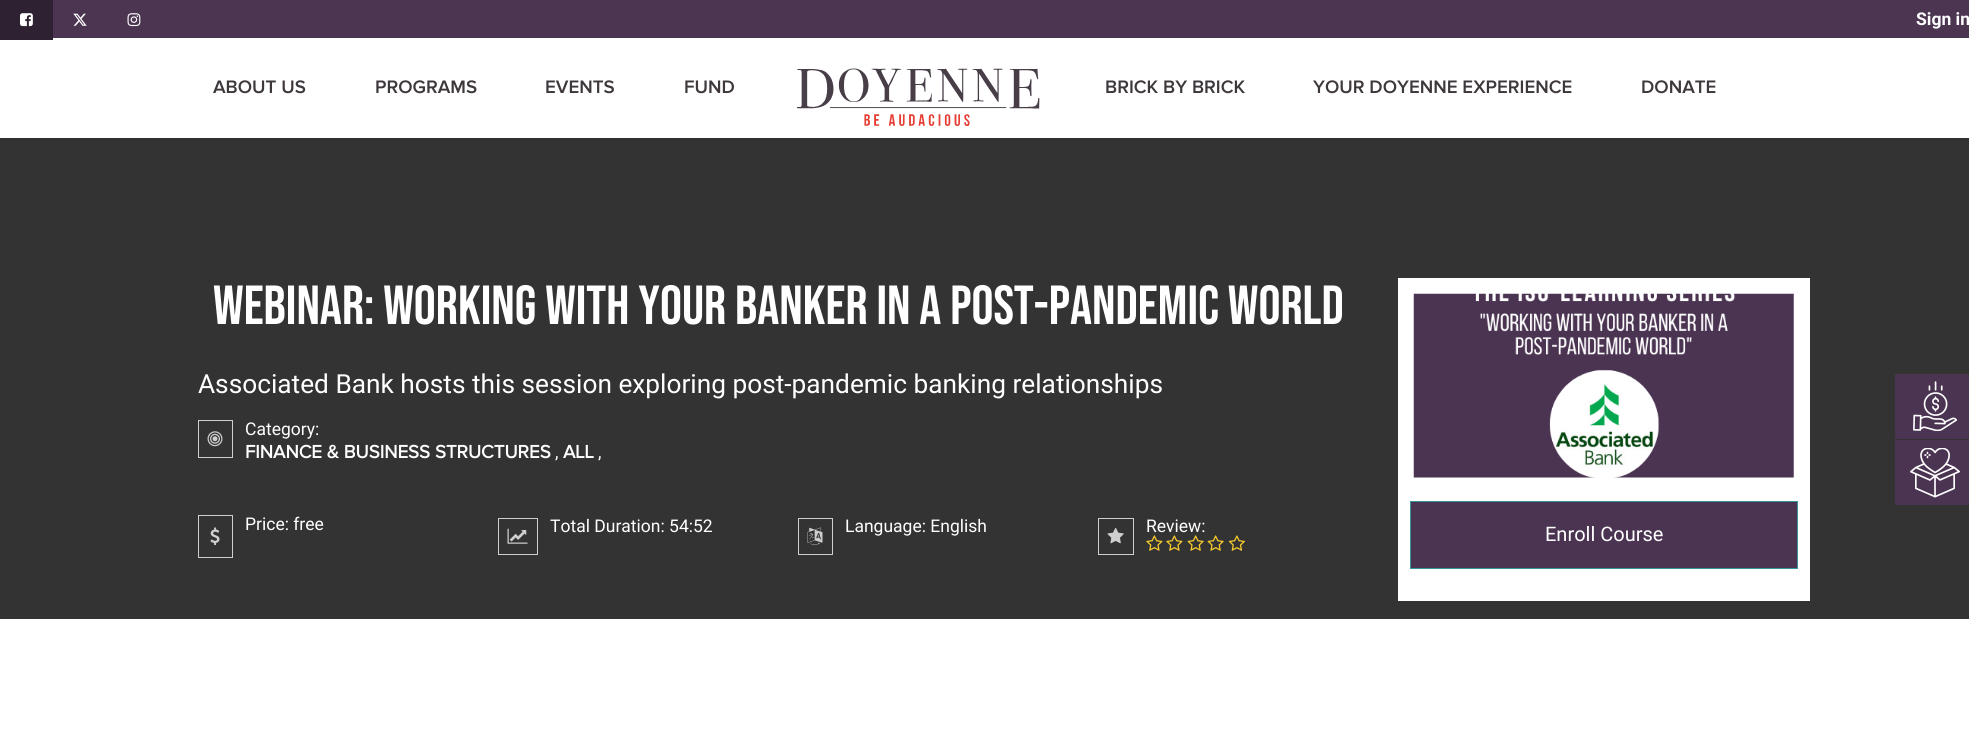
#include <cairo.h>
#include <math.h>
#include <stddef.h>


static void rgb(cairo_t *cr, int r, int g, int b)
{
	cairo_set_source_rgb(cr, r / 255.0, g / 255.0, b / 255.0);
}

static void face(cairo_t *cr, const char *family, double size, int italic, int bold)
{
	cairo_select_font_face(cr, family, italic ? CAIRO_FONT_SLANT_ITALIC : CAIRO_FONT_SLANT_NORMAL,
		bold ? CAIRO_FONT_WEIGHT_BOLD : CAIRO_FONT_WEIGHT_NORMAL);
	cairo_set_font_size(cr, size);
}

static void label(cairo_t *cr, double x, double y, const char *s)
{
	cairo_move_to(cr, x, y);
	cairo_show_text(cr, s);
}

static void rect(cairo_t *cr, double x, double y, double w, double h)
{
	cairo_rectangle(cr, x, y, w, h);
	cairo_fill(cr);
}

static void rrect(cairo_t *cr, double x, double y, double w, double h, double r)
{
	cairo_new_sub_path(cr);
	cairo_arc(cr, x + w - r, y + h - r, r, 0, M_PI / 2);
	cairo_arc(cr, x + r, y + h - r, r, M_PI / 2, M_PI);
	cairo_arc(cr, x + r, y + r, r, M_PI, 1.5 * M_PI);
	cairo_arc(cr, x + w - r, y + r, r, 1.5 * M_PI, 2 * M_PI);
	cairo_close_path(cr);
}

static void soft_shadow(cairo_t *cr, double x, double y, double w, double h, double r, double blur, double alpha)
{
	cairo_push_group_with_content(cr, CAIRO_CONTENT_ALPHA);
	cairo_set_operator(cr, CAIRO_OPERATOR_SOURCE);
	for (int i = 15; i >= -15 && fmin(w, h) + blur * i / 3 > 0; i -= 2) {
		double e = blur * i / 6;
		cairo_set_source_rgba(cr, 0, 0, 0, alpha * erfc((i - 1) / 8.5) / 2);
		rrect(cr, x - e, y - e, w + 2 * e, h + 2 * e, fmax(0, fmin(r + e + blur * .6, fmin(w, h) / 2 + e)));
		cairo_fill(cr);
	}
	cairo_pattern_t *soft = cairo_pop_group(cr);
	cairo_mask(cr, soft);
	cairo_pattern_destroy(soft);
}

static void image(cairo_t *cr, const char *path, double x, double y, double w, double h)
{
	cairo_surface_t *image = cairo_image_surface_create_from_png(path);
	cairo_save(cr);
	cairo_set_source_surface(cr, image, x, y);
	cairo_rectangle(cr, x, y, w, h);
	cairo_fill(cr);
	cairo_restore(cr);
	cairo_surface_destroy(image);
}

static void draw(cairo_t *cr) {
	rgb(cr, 255, 255, 255);
	cairo_paint(cr);
	rgb(cr, 51, 51, 51);
	rect(cr, 0, 138, 1969, 481);
	rgb(cr, 0, 0, 0);
	soft_shadow(cr, 0, 40, 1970, 100, 0, 2.5, 0.07);
	rgb(cr, 75, 53, 81);
	rect(cr, 53, 0, 1916, 38);
	rgb(cr, 255, 255, 255);
	rect(cr, 0, 38, 1969, 100);
	rgb(cr, 46, 33, 50);
	rect(cr, 0, 0, 53, 40);
	image(cr, "image0.png", 20, 13, 13, 14);
	image(cr, "image1.png", 73, 13, 14, 13);
	image(cr, "image2.png", 127, 13, 14, 14);
	face(cr, "Roboto", 17.5, 0, 1);
	rgb(cr, 255, 255, 255);
	label(cr, 1916, 25, "Sign in");
	face(cr, "Proxima Nova SemiBold", 18.75, 0, 0);
	rgb(cr, 62, 56, 61);
	label(cr, 213, 93, "ABOUT US");
	label(cr, 375, 93, "PROGRAMS");
	label(cr, 545, 93, "EVENTS");
	label(cr, 684, 93, "FUND");
	image(cr, "image3.png", 796, 68, 244, 58);
	label(cr, 1105, 93, "BRICK BY BRICK");
	label(cr, 1313, 93, "YOUR DOYENNE EXPERIENCE");
	label(cr, 1641, 93, "DONATE");
	face(cr, "Bebas Neue", 55, 0, 0);
	rgb(cr, 255, 255, 255);
	label(cr, 213, 324, "Webinar: Working with your Banker in a Post-Pandemic World");
	face(cr, "Roboto", 26.25, 0, 0);
	label(cr, 198, 393, "Associated Bank hosts this session exploring post-pandemic banking relationships");
	cairo_rectangle(cr, 198.5, 420.5, 34, 37);
	rgb(cr, 207, 207, 207);
	cairo_set_line_width(cr, 1);
	cairo_stroke(cr);
	image(cr, "image4.png", 207, 431, 16, 16);
	face(cr, "Roboto", 17.5, 0, 0);
	rgb(cr, 255, 255, 255);
	label(cr, 245, 435, "Category:");
	face(cr, "Proxima Nova", 18.75, 0, 1);
	label(cr, 245, 458, "FINANCE & BUSINESS STRUCTURES");
	label(cr, 563, 458, "ALL");
	face(cr, "Roboto", 17.5, 0, 0);
	label(cr, 555, 458, ",");
	label(cr, 598, 458, ",");
	cairo_rectangle(cr, 198.5, 515.5, 34, 42);
	rgb(cr, 207, 207, 207);
	cairo_stroke(cr);
	image(cr, "image5.png", 210, 527, 10, 18);
	rgb(cr, 255, 255, 255);
	label(cr, 245, 530, "Price: free");
	cairo_rectangle(cr, 498.5, 518.5, 39, 36);
	rgb(cr, 207, 207, 207);
	cairo_stroke(cr);
	image(cr, "image6.png", 507, 528, 21, 16);
	rgb(cr, 255, 255, 255);
	label(cr, 550, 532, "Total Duration: 54:52");
	cairo_rectangle(cr, 798.5, 518.5, 34, 36);
	rgb(cr, 207, 207, 207);
	cairo_stroke(cr);
	image(cr, "image7.png", 807, 527, 16, 18);
	rgb(cr, 255, 255, 255);
	label(cr, 845, 532, "Language: English");
	cairo_rectangle(cr, 1098.5, 518.5, 35, 36);
	rgb(cr, 207, 207, 207);
	cairo_stroke(cr);
	image(cr, "image8.png", 1107, 527, 17, 17);
	rgb(cr, 255, 255, 255);
	label(cr, 1146, 532, "Review:");
	image(cr, "image9.png", 1146, 535, 17, 16);
	image(cr, "image9.png", 1166, 535, 17, 16);
	image(cr, "image10.png", 1187, 535, 17, 16);
	image(cr, "image10.png", 1207, 535, 17, 16);
	image(cr, "image11.png", 1228, 535, 17, 16);
	rect(cr, 1398, 278, 412, 323);
	image(cr, "image12.png", 1413, 293, 381, 185);
	rgb(cr, 75, 52, 82);
	cairo_rectangle(cr, 1410.5, 501.5, 387, 67);
	cairo_fill_preserve(cr);
	rgb(cr, 53, 151, 156);
	cairo_stroke(cr);
	face(cr, "Roboto", 20, 0, 0);
	rgb(cr, 255, 255, 255);
	label(cr, 1545, 541, "Enroll Course");
	rgb(cr, 75, 52, 82);
	rect(cr, 1895, 374, 74, 65);
	image(cr, "image13.png", 1913, 381, 44, 50);
	rect(cr, 1895, 440, 74, 65);
	image(cr, "image14.png", 1910, 448, 50, 50);
}

int main(void) {
	cairo_surface_t *surface = cairo_image_surface_create(CAIRO_FORMAT_RGB24, 1969, 746);
	cairo_t *cr = cairo_create(surface);
	cairo_font_options_t *options = cairo_font_options_create();
	cairo_font_options_set_hint_metrics(options, CAIRO_HINT_METRICS_OFF);
	cairo_font_options_set_hint_style(options, CAIRO_HINT_STYLE_NONE);
	cairo_set_font_options(cr, options);
	cairo_set_miter_limit(cr, 4);
	draw(cr);
	cairo_surface_write_to_png(surface, "render.png");
	cairo_font_options_destroy(options);
	cairo_destroy(cr);
	cairo_surface_destroy(surface);
	return 0;
}
